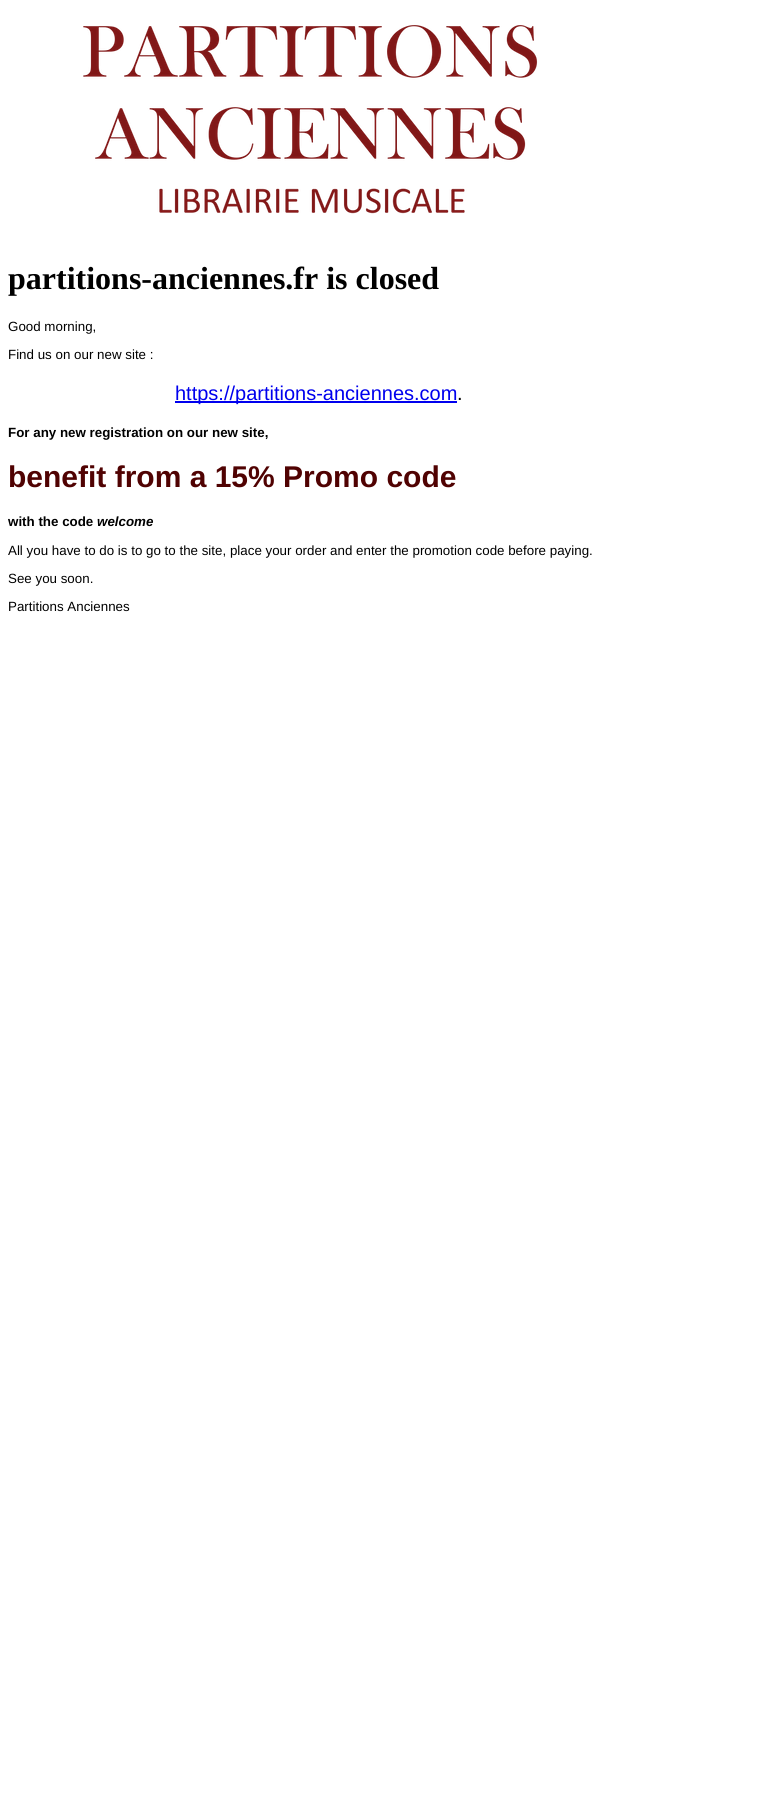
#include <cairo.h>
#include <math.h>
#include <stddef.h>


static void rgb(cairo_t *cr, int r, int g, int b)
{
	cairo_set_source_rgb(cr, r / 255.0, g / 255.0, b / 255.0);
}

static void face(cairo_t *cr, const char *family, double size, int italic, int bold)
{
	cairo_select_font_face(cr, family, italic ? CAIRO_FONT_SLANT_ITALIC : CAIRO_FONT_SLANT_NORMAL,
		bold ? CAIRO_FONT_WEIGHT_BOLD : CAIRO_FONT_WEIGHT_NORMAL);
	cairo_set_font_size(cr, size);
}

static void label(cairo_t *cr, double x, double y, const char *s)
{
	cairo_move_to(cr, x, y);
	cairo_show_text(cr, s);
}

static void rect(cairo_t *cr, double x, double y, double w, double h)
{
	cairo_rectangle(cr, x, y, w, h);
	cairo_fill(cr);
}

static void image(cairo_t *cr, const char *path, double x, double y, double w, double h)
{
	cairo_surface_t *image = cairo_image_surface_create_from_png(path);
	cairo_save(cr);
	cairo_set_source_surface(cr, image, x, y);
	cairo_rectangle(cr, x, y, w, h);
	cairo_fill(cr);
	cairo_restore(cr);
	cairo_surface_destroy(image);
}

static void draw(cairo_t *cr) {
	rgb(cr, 255, 255, 255);
	cairo_paint(cr);
	image(cr, "image0.png", 83, 25, 455, 189);
	face(cr, "Liberation Serif", 32, 0, 1);
	rgb(cr, 0, 0, 0);
	label(cr, 8, 289, "partitions-anciennes.fr is closed");
	face(cr, "Liberation Sans", 13.35, 0, 0);
	label(cr, 8, 331, "Good morning,");
	label(cr, 8, 359, "Find us on our new site :");
	rgb(cr, 0, 0, 238);
	rect(cr, 175, 401, 282, 2);
	face(cr, "Liberation Sans", 20, 0, 0);
	label(cr, 175, 400, "https://partitions-anciennes.com");
	rgb(cr, 0, 0, 0);
	label(cr, 457, 400, ".");
	face(cr, "Liberation Sans", 13.35, 0, 1);
	label(cr, 8, 437, "For any new registration on our new site,");
	face(cr, "Liberation Sans", 30, 0, 1);
	rgb(cr, 80, 2, 2);
	label(cr, 8, 487, "benefit from a 15% Promo code");
	face(cr, "Liberation Sans", 13.35, 0, 1);
	rgb(cr, 0, 0, 0);
	label(cr, 8, 526, "with the code");
	face(cr, "Liberation Sans", 13.35, 1, 1);
	label(cr, 97, 526, "welcome");
	face(cr, "Liberation Sans", 13.35, 0, 0);
	label(cr, 8, 555, "All you have to do is to go to the site, place your order and enter the promotion code before paying.");
	label(cr, 8, 583, "See you soon.");
	label(cr, 8, 611, "Partitions Anciennes");
}

int main(void) {
	cairo_surface_t *surface = cairo_image_surface_create(CAIRO_FORMAT_RGB24, 762, 1793);
	cairo_t *cr = cairo_create(surface);
	cairo_font_options_t *options = cairo_font_options_create();
	cairo_font_options_set_hint_metrics(options, CAIRO_HINT_METRICS_OFF);
	cairo_font_options_set_hint_style(options, CAIRO_HINT_STYLE_NONE);
	cairo_set_font_options(cr, options);
	cairo_set_miter_limit(cr, 4);
	draw(cr);
	cairo_surface_write_to_png(surface, "render.png");
	cairo_font_options_destroy(options);
	cairo_destroy(cr);
	cairo_surface_destroy(surface);
	return 0;
}
